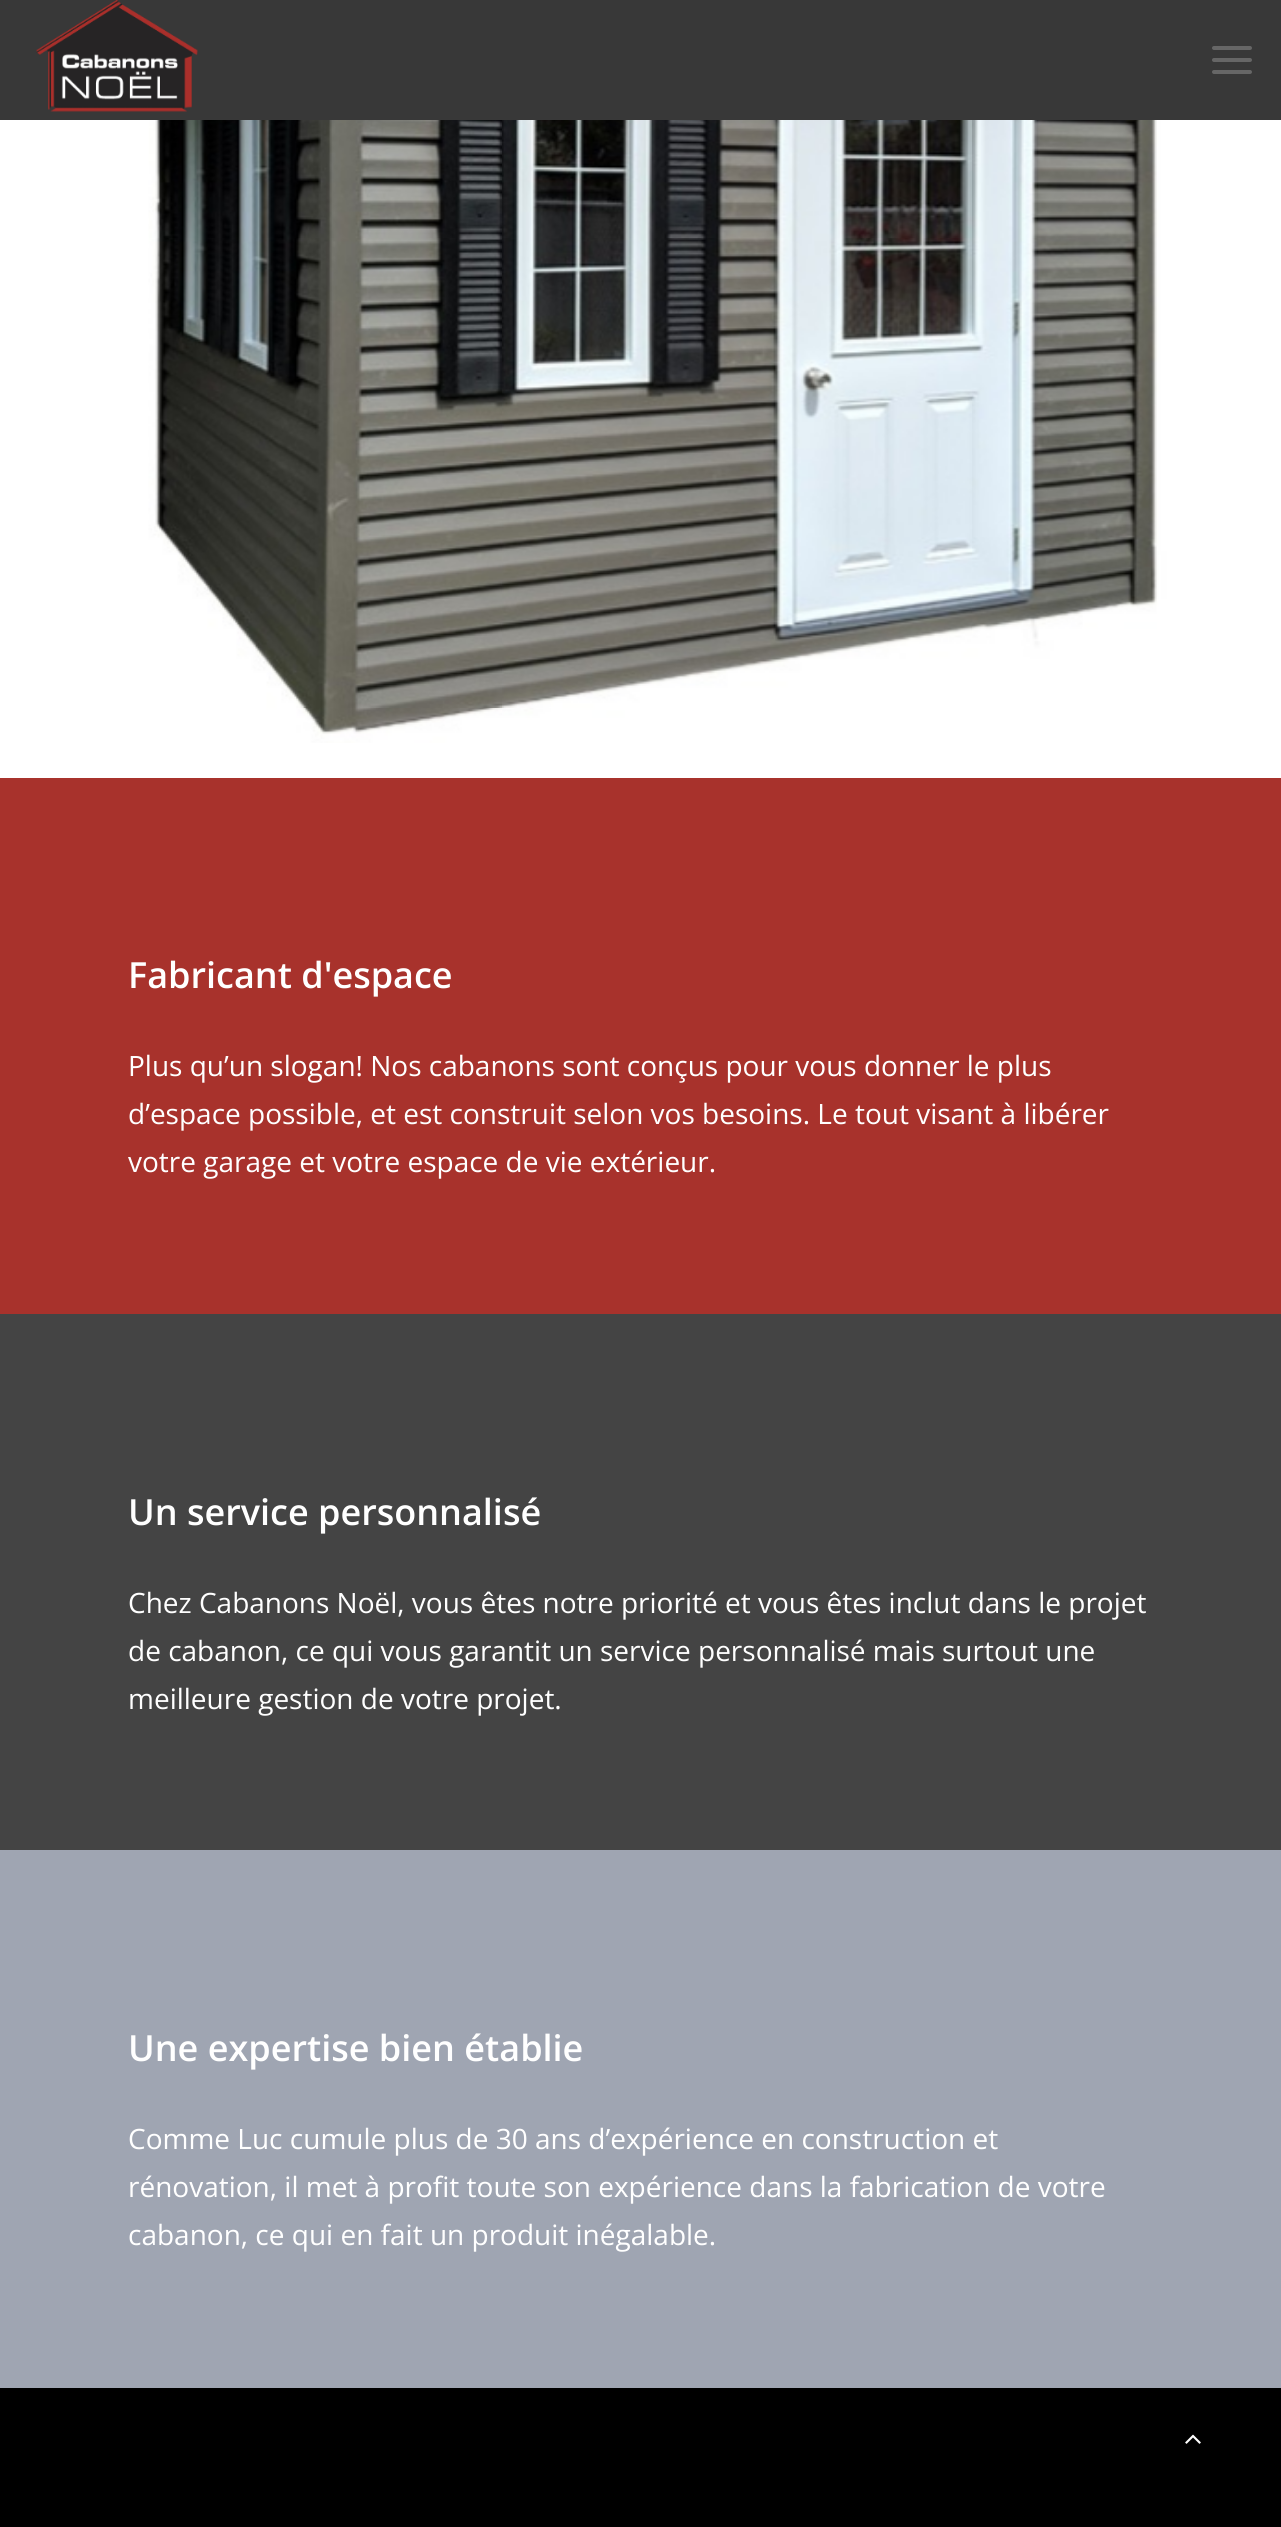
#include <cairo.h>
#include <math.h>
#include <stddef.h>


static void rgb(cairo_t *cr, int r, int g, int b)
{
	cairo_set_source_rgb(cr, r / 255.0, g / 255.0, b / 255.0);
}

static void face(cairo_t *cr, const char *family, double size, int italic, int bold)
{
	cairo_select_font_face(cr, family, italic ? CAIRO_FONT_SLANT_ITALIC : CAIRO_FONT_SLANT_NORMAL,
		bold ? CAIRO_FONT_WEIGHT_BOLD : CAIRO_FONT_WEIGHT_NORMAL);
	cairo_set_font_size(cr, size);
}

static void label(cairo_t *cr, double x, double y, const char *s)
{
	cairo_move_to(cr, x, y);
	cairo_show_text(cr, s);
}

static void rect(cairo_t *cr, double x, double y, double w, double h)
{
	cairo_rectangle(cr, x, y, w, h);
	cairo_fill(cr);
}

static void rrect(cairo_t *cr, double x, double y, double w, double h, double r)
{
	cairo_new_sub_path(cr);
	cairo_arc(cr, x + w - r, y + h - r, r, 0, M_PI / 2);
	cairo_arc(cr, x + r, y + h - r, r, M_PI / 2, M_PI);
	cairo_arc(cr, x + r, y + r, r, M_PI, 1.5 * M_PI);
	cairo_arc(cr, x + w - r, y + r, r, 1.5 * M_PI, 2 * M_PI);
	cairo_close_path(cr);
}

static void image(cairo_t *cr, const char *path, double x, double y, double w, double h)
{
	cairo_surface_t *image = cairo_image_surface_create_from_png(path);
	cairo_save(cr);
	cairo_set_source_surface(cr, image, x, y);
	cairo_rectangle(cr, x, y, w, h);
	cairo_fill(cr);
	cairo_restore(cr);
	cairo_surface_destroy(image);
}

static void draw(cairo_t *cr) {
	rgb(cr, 255, 255, 255);
	cairo_paint(cr);
	rgb(cr, 56, 56, 56);
	rect(cr, 0, 0, 1281, 120);
	image(cr, "image0.png", 36, 0, 162, 112);
	rgb(cr, 102, 102, 102);
	rrect(cr, 1212, 58, 40, 4, 2);
	cairo_fill(cr);
	rrect(cr, 1212, 46, 40, 4, 2);
	cairo_fill(cr);
	rrect(cr, 1212, 70, 40, 4, 2);
	cairo_fill(cr);
	image(cr, "image1.png", 45, 120, 1179, 623);
	rgb(cr, 168, 50, 44);
	rect(cr, 0, 778, 1281, 536);
	face(cr, "Open Sans SemiBold", 36, 0, 0);
	rgb(cr, 255, 255, 255);
	label(cr, 128, 988, "Fabricant d'espace");
	face(cr, "Open Sans", 28, 0, 0);
	label(cr, 128, 1076, "Plus qu’un slogan! Nos cabanons sont conçus pour vous donner le plus");
	label(cr, 128, 1124, "d’espace possible, et est construit selon vos besoins. Le tout visant à libérer");
	label(cr, 128, 1172, "votre garage et votre espace de vie extérieur.");
	rgb(cr, 68, 68, 68);
	rect(cr, 0, 1314, 1281, 536);
	face(cr, "Open Sans SemiBold", 36, 0, 0);
	rgb(cr, 255, 255, 255);
	label(cr, 128, 1525, "Un service personnalisé");
	face(cr, "Open Sans", 28, 0, 0);
	label(cr, 128, 1613, "Chez Cabanons Noël, vous êtes notre priorité et vous êtes inclut dans le projet");
	label(cr, 128, 1661, "de cabanon, ce qui vous garantit un service personnalisé mais surtout une");
	label(cr, 128, 1709, "meilleure gestion de votre projet.");
	rgb(cr, 159, 165, 178);
	rect(cr, 0, 1850, 1281, 538);
	face(cr, "Open Sans SemiBold", 36, 0, 0);
	rgb(cr, 255, 255, 255);
	label(cr, 128, 2061, "Une expertise bien établie");
	face(cr, "Open Sans", 28, 0, 0);
	label(cr, 128, 2149, "Comme Luc cumule plus de 30 ans d’expérience en construction et");
	label(cr, 128, 2197, "rénovation, il met à profit toute son expérience dans la fabrication de votre");
	label(cr, 128, 2245, "cabanon, ce qui en fait un produit inégalable.");
	rgb(cr, 0, 0, 0);
	rect(cr, 0, 2388, 1281, 139);
	image(cr, "image2.png", 1185, 2434, 16, 10);
}

int main(void) {
	cairo_surface_t *surface = cairo_image_surface_create(CAIRO_FORMAT_RGB24, 1281, 2527);
	cairo_t *cr = cairo_create(surface);
	cairo_font_options_t *options = cairo_font_options_create();
	cairo_font_options_set_hint_metrics(options, CAIRO_HINT_METRICS_OFF);
	cairo_font_options_set_hint_style(options, CAIRO_HINT_STYLE_NONE);
	cairo_set_font_options(cr, options);
	cairo_set_miter_limit(cr, 4);
	draw(cr);
	cairo_surface_write_to_png(surface, "render.png");
	cairo_font_options_destroy(options);
	cairo_destroy(cr);
	cairo_surface_destroy(surface);
	return 0;
}
